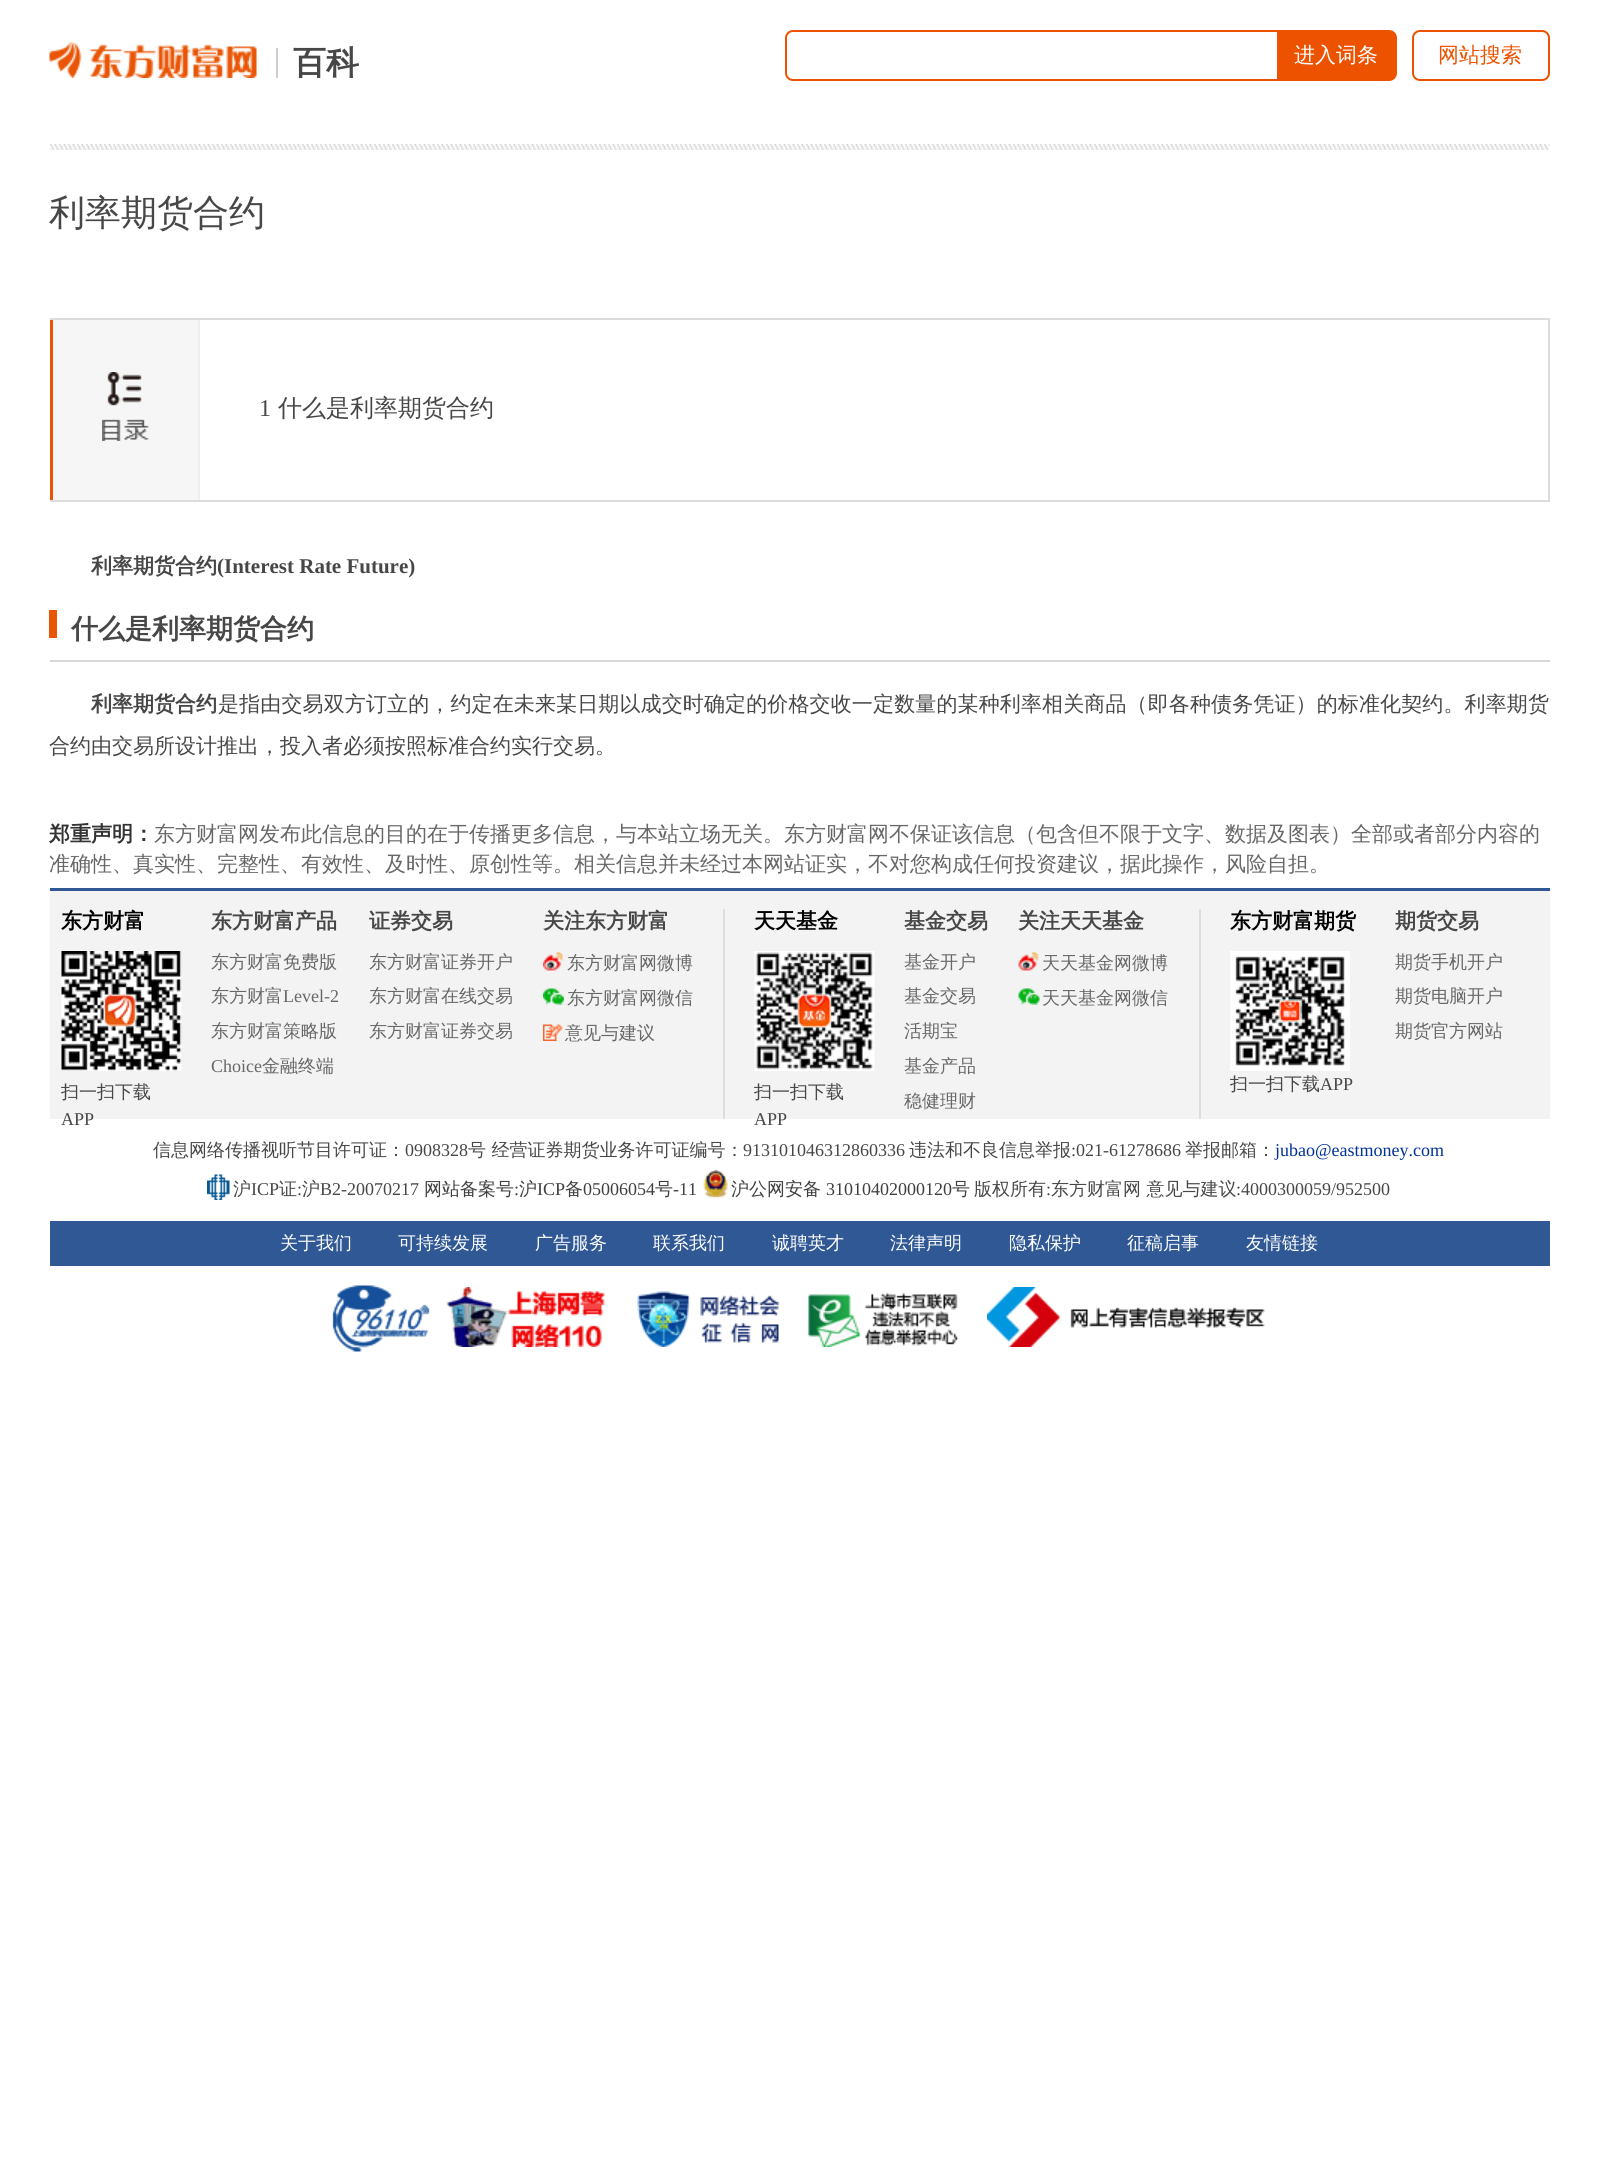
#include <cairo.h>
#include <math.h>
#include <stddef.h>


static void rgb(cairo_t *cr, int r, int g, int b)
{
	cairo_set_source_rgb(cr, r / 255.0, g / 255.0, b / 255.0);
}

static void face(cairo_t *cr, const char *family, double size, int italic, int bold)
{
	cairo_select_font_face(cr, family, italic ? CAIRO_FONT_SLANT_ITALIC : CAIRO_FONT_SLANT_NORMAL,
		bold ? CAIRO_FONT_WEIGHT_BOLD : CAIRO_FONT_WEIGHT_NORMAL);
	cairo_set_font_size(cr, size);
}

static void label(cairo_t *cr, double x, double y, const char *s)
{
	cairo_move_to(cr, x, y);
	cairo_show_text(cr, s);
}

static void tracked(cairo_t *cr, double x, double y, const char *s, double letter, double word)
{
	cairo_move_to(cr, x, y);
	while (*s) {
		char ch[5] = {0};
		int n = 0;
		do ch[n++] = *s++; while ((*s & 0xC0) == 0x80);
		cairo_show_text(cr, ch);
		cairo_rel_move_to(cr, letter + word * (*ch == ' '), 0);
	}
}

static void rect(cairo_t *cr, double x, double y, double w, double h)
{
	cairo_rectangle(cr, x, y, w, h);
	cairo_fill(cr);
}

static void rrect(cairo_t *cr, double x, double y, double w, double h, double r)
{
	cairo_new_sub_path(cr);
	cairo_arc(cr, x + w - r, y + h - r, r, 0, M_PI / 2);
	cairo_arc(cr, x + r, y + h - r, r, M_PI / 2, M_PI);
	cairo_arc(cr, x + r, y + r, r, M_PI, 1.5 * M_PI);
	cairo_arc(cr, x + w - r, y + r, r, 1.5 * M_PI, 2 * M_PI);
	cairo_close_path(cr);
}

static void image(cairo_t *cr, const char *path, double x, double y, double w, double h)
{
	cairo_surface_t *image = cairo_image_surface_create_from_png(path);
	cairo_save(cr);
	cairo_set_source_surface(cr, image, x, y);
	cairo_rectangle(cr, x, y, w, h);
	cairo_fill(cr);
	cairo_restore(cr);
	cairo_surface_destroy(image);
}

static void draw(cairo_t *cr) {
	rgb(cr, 255, 255, 255);
	cairo_paint(cr);
	image(cr, "image0.png", 49, 144, 1501, 6);
	image(cr, "image1.png", 49, 42, 208, 36);
	rgb(cr, 206, 206, 206);
	rect(cr, 276, 48, 2, 30);
	face(cr, "WenQuanYi Zen Hei", 33, 0, 1);
	rgb(cr, 71, 71, 71);
	label(cr, 293, 74, "百科");
	rrect(cr, 786, 31, 499, 49, 7);
	rgb(cr, 236, 82, 0);
	cairo_stroke(cr);
	cairo_new_path(cr);
	cairo_move_to(cr, 1277, 30);
	cairo_line_to(cr, 1389, 30);
	cairo_curve_to(cr, 1393.5, 30, 1397, 33.5, 1397, 38);
	cairo_line_to(cr, 1397, 73);
	cairo_curve_to(cr, 1397, 77.5, 1393.5, 81, 1389, 81);
	cairo_line_to(cr, 1277, 81);
	cairo_close_path(cr);
	cairo_fill(cr);
	face(cr, "WenQuanYi Zen Hei Medium", 21, 0, 0);
	rgb(cr, 255, 255, 255);
	label(cr, 1294, 62, "进入词条");
	rrect(cr, 1413, 31, 136, 49, 7);
	rgb(cr, 236, 82, 0);
	cairo_stroke(cr);
	label(cr, 1438, 62, "网站搜索");
	face(cr, "WenQuanYi Zen Hei Medium", 36, 0, 0);
	rgb(cr, 71, 71, 71);
	label(cr, 49, 225, "利率期货合约");
	rgb(cr, 220, 220, 220);
	rect(cr, 50, 318, 1500, 2);
	rect(cr, 1548, 318, 2, 183);
	rect(cr, 50, 500, 1500, 2);
	rgb(cr, 246, 246, 246);
	rect(cr, 53, 320, 145, 180);
	image(cr, "image2.png", 102, 372, 47, 69);
	rgb(cr, 238, 238, 238);
	rect(cr, 198, 320, 2, 180);
	rgb(cr, 233, 85, 4);
	rect(cr, 50, 320, 3, 180);
	face(cr, "Liberation Serif", 24, 0, 0);
	rgb(cr, 71, 71, 71);
	label(cr, 259, 416, "1");
	face(cr, "WenQuanYi Zen Hei Medium", 24, 0, 0);
	label(cr, 278, 416, "什么是利率期货合约");
	face(cr, "WenQuanYi Zen Hei", 21, 0, 1);
	label(cr, 91, 573, "利率期货合约");
	face(cr, "Liberation Serif", 21, 0, 1);
	label(cr, 217, 573, "(Interest Rate Future)");
	rgb(cr, 233, 85, 4);
	rect(cr, 49, 610, 8, 28);
	rgb(cr, 215, 215, 215);
	rect(cr, 50, 660, 1500, 2);
	face(cr, "WenQuanYi Zen Hei", 27, 0, 1);
	rgb(cr, 71, 71, 71);
	label(cr, 71, 638, "什么是利率期货合约");
	face(cr, "WenQuanYi Zen Hei", 21, 0, 1);
	label(cr, 91, 711, "利率期货合约");
	face(cr, "WenQuanYi Zen Hei Medium", 21, 0, 0);
	tracked(cr, 218, 711, "是指由交易双方订立的，约定在未来某日期以成交时确定的价格交收一定数量的某种利率相关商品（即各种债务凭证）的标准化契约。利率期货", 0.13, 0);
	label(cr, 49, 753, "合约由交易所设计推出，投入者必须按照标准合约实行交易。");
	face(cr, "WenQuanYi Zen Hei", 21, 0, 1);
	rgb(cr, 51, 51, 51);
	label(cr, 49, 841, "郑重声明：");
	face(cr, "WenQuanYi Zen Hei Medium", 21, 0, 0);
	rgb(cr, 103, 103, 103);
	label(cr, 154, 841, "东方财富网发布此信息的目的在于传播更多信息，与本站立场无关。东方财富网不保证该信息（包含但不限于文字、数据及图表）全部或者部分内容的");
	label(cr, 49, 871, "准确性、真实性、完整性、有效性、及时性、原创性等。相关信息并未经过本网站证实，不对您构成任何投资建议，据此操作，风险自担。");
	rgb(cr, 47, 88, 149);
	rect(cr, 50, 888, 1500, 3);
	rgb(cr, 243, 243, 243);
	rect(cr, 50, 891, 1500, 228);
	face(cr, "WenQuanYi Zen Hei", 21, 0, 1);
	rgb(cr, 0, 0, 0);
	label(cr, 61, 928, "东方财富");
	image(cr, "image3.png", 61, 951, 121, 120);
	face(cr, "WenQuanYi Zen Hei Medium", 18, 0, 0);
	rgb(cr, 71, 71, 71);
	label(cr, 61, 1098, "扫一扫下载");
	face(cr, "Liberation Serif", 18, 0, 0);
	label(cr, 61, 1125, "APP");
	face(cr, "WenQuanYi Zen Hei", 21, 0, 1);
	label(cr, 211, 928, "东方财富产品");
	face(cr, "WenQuanYi Zen Hei Medium", 18, 0, 0);
	rgb(cr, 103, 103, 103);
	label(cr, 211, 968, "东方财富免费版");
	label(cr, 211, 1002, "东方财富");
	face(cr, "Liberation Serif", 18, 0, 0);
	label(cr, 283, 1002, "Level-2");
	face(cr, "WenQuanYi Zen Hei Medium", 18, 0, 0);
	label(cr, 211, 1037, "东方财富策略版");
	face(cr, "Liberation Serif", 18, 0, 0);
	label(cr, 211, 1072, "Choice");
	face(cr, "WenQuanYi Zen Hei Medium", 18, 0, 0);
	label(cr, 262, 1072, "金融终端");
	face(cr, "WenQuanYi Zen Hei", 21, 0, 1);
	rgb(cr, 71, 71, 71);
	label(cr, 369, 928, "证券交易");
	face(cr, "WenQuanYi Zen Hei Medium", 18, 0, 0);
	rgb(cr, 103, 103, 103);
	label(cr, 369, 968, "东方财富证券开户");
	label(cr, 369, 1002, "东方财富在线交易");
	label(cr, 369, 1037, "东方财富证券交易");
	face(cr, "WenQuanYi Zen Hei", 21, 0, 1);
	rgb(cr, 71, 71, 71);
	label(cr, 543, 928, "关注东方财富");
	image(cr, "image4.png", 543, 952, 20, 19);
	face(cr, "WenQuanYi Zen Hei Medium", 18, 0, 0);
	rgb(cr, 103, 103, 103);
	label(cr, 567, 969, "东方财富网微博");
	image(cr, "image5.png", 543, 988, 21, 17);
	label(cr, 567, 1004, "东方财富网微信");
	image(cr, "image6.png", 543, 1024, 20, 17);
	label(cr, 565, 1039, "意见与建议");
	rgb(cr, 221, 221, 221);
	rect(cr, 723, 909, 2, 210);
	face(cr, "WenQuanYi Zen Hei", 21, 0, 1);
	rgb(cr, 0, 0, 0);
	label(cr, 754, 928, "天天基金");
	image(cr, "image7.png", 754, 951, 121, 120);
	face(cr, "WenQuanYi Zen Hei Medium", 18, 0, 0);
	rgb(cr, 71, 71, 71);
	label(cr, 754, 1098, "扫一扫下载");
	face(cr, "Liberation Serif", 18, 0, 0);
	label(cr, 754, 1125, "APP");
	face(cr, "WenQuanYi Zen Hei", 21, 0, 1);
	label(cr, 904, 928, "基金交易");
	face(cr, "WenQuanYi Zen Hei Medium", 18, 0, 0);
	rgb(cr, 103, 103, 103);
	label(cr, 904, 968, "基金开户");
	label(cr, 904, 1002, "基金交易");
	label(cr, 904, 1037, "活期宝");
	label(cr, 904, 1072, "基金产品");
	label(cr, 904, 1107, "稳健理财");
	face(cr, "WenQuanYi Zen Hei", 21, 0, 1);
	rgb(cr, 71, 71, 71);
	label(cr, 1018, 928, "关注天天基金");
	image(cr, "image8.png", 1018, 952, 21, 19);
	face(cr, "WenQuanYi Zen Hei Medium", 18, 0, 0);
	rgb(cr, 103, 103, 103);
	label(cr, 1042, 969, "天天基金网微博");
	image(cr, "image9.png", 1018, 988, 22, 17);
	label(cr, 1042, 1004, "天天基金网微信");
	rgb(cr, 221, 221, 221);
	rect(cr, 1199, 909, 2, 210);
	face(cr, "WenQuanYi Zen Hei", 21, 0, 1);
	rgb(cr, 0, 0, 0);
	label(cr, 1230, 928, "东方财富期货");
	image(cr, "image10.png", 1230, 951, 120, 120);
	face(cr, "WenQuanYi Zen Hei Medium", 18, 0, 0);
	rgb(cr, 71, 71, 71);
	label(cr, 1230, 1090, "扫一扫下载");
	face(cr, "Liberation Serif", 18, 0, 0);
	label(cr, 1320, 1090, "APP");
	face(cr, "WenQuanYi Zen Hei", 21, 0, 1);
	label(cr, 1395, 928, "期货交易");
	face(cr, "WenQuanYi Zen Hei Medium", 18, 0, 0);
	rgb(cr, 103, 103, 103);
	label(cr, 1395, 968, "期货手机开户");
	label(cr, 1395, 1002, "期货电脑开户");
	label(cr, 1395, 1037, "期货官方网站");
	rgb(cr, 71, 71, 71);
	label(cr, 153, 1156, "信息网络传播视听节目许可证：");
	face(cr, "Liberation Serif", 18, 0, 0);
	label(cr, 405, 1156, "0908328");
	face(cr, "WenQuanYi Zen Hei Medium", 18, 0, 0);
	label(cr, 468, 1156, "号 经营证券期货业务许可证编号：");
	face(cr, "Liberation Serif", 18, 0, 0);
	label(cr, 743, 1156, "913101046312860336");
	face(cr, "WenQuanYi Zen Hei Medium", 18, 0, 0);
	label(cr, 909, 1156, "违法和不良信息举报");
	face(cr, "Liberation Serif", 18, 0, 0);
	label(cr, 1071, 1156, ":021-61278686");
	face(cr, "WenQuanYi Zen Hei Medium", 18, 0, 0);
	label(cr, 1185, 1156, "举报邮箱：");
	face(cr, "Liberation Serif", 18, 0, 0);
	rgb(cr, 0, 51, 152);
	label(cr, 1275, 1156, "jubao@eastmoney.com");
	image(cr, "image11.png", 207, 1174, 23, 26);
	face(cr, "WenQuanYi Zen Hei Medium", 18, 0, 0);
	rgb(cr, 71, 71, 71);
	label(cr, 233, 1195, "沪");
	face(cr, "Liberation Serif", 18, 0, 0);
	label(cr, 251, 1195, "ICP");
	face(cr, "WenQuanYi Zen Hei Medium", 18, 0, 0);
	label(cr, 279, 1195, "证");
	face(cr, "Liberation Serif", 18, 0, 0);
	label(cr, 297, 1195, ":");
	face(cr, "WenQuanYi Zen Hei Medium", 18, 0, 0);
	label(cr, 302, 1195, "沪");
	face(cr, "Liberation Serif", 18, 0, 0);
	label(cr, 320, 1195, "B2-20070217");
	face(cr, "WenQuanYi Zen Hei Medium", 18, 0, 0);
	rgb(cr, 63, 63, 63);
	label(cr, 424, 1195, "网站备案号");
	face(cr, "Liberation Serif", 18, 0, 0);
	label(cr, 514, 1195, ":");
	face(cr, "WenQuanYi Zen Hei Medium", 18, 0, 0);
	label(cr, 519, 1195, "沪");
	face(cr, "Liberation Serif", 18, 0, 0);
	label(cr, 537, 1195, "ICP");
	face(cr, "WenQuanYi Zen Hei Medium", 18, 0, 0);
	label(cr, 565, 1195, "备");
	face(cr, "Liberation Serif", 18, 0, 0);
	label(cr, 583, 1195, "05006054");
	face(cr, "WenQuanYi Zen Hei Medium", 18, 0, 0);
	label(cr, 655, 1195, "号");
	face(cr, "Liberation Serif", 18, 0, 0);
	label(cr, 673, 1195, "-11");
	image(cr, "image12.png", 703, 1170, 25, 28);
	face(cr, "WenQuanYi Zen Hei Medium", 18, 0, 0);
	label(cr, 731, 1195, "沪公网安备");
	face(cr, "Liberation Serif", 18, 0, 0);
	label(cr, 826, 1195, "31010402000120");
	face(cr, "WenQuanYi Zen Hei Medium", 18, 0, 0);
	label(cr, 952, 1195, "号");
	rgb(cr, 71, 71, 71);
	label(cr, 974, 1195, "版权所有");
	face(cr, "Liberation Serif", 18, 0, 0);
	label(cr, 1046, 1195, ":");
	face(cr, "WenQuanYi Zen Hei Medium", 18, 0, 0);
	label(cr, 1051, 1195, "东方财富网 意见与建议");
	face(cr, "Liberation Serif", 18, 0, 0);
	label(cr, 1236, 1195, ":4000300059/952500");
	rgb(cr, 47, 88, 149);
	rect(cr, 50, 1221, 1500, 45);
	face(cr, "WenQuanYi Zen Hei Medium", 18, 0, 0);
	rgb(cr, 255, 255, 255);
	label(cr, 280, 1249, "关于我们");
	label(cr, 398, 1249, "可持续发展");
	label(cr, 535, 1249, "广告服务");
	label(cr, 653, 1249, "联系我们");
	label(cr, 772, 1249, "诚聘英才");
	label(cr, 890, 1249, "法律声明");
	label(cr, 1009, 1249, "隐私保护");
	label(cr, 1127, 1249, "征稿启事");
	label(cr, 1246, 1249, "友情链接");
	image(cr, "image13.png", 332, 1285, 98, 67);
	image(cr, "image14.png", 446, 1287, 159, 60);
	image(cr, "image15.png", 637, 1291, 143, 56);
	image(cr, "image16.png", 808, 1292, 151, 55);
	image(cr, "image17.png", 987, 1287, 278, 60);
}

int main(void) {
	cairo_surface_t *surface = cairo_image_surface_create(CAIRO_FORMAT_RGB24, 1597, 2176);
	cairo_t *cr = cairo_create(surface);
	cairo_font_options_t *options = cairo_font_options_create();
	cairo_font_options_set_hint_metrics(options, CAIRO_HINT_METRICS_OFF);
	cairo_font_options_set_hint_style(options, CAIRO_HINT_STYLE_NONE);
	cairo_set_font_options(cr, options);
	cairo_set_miter_limit(cr, 4);
	draw(cr);
	cairo_surface_write_to_png(surface, "render.png");
	cairo_font_options_destroy(options);
	cairo_destroy(cr);
	cairo_surface_destroy(surface);
	return 0;
}
